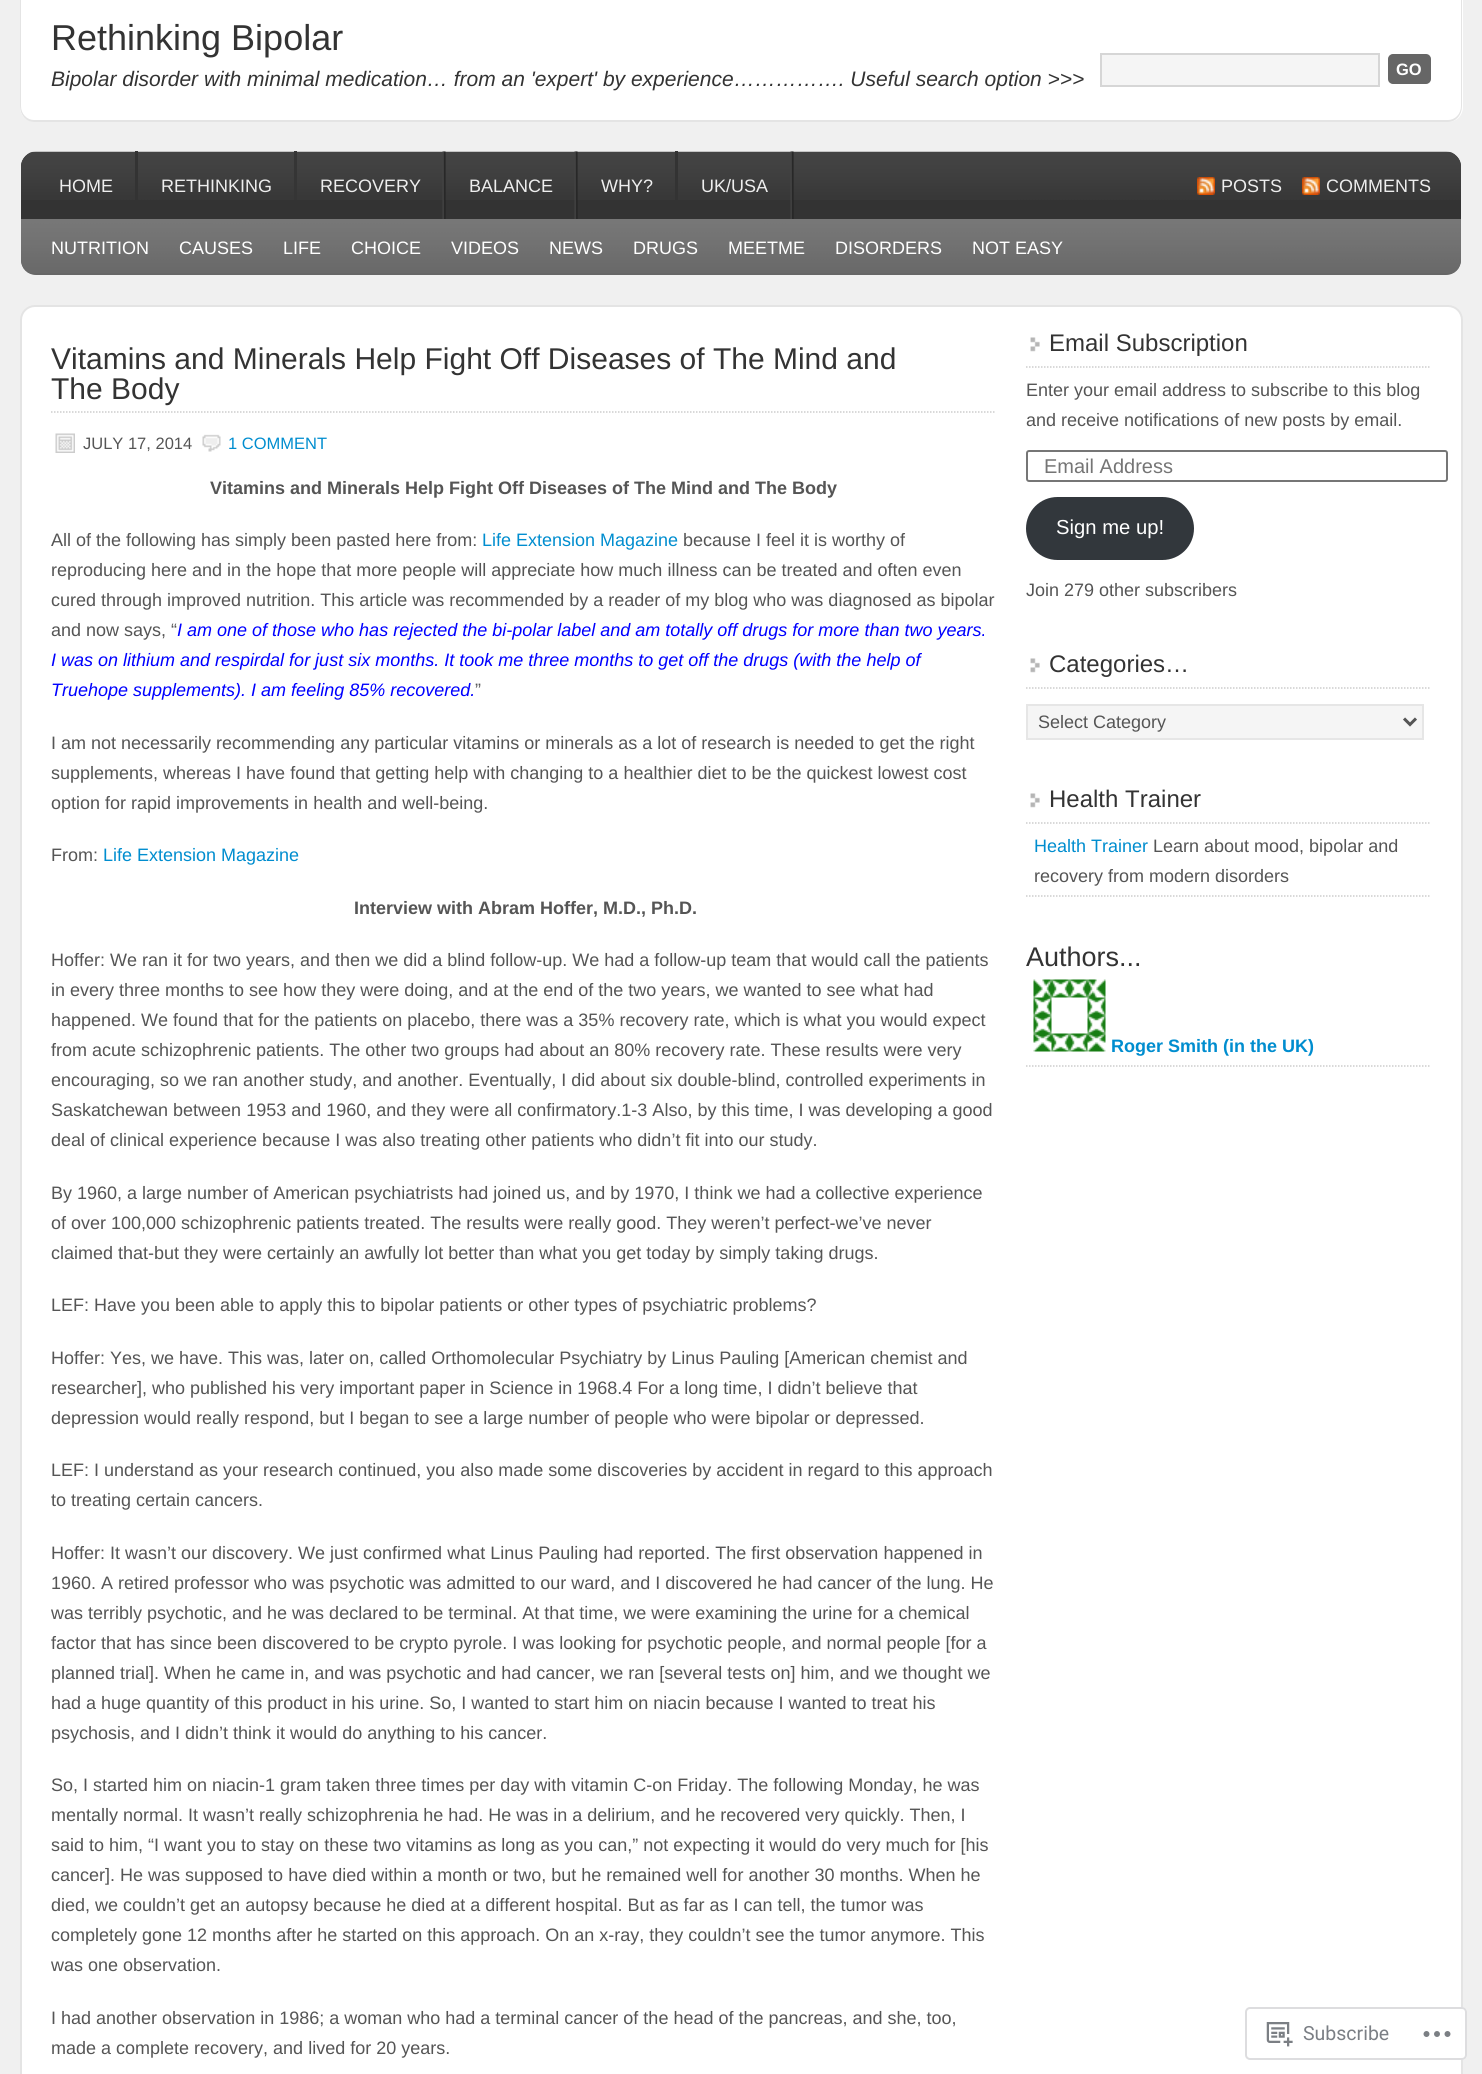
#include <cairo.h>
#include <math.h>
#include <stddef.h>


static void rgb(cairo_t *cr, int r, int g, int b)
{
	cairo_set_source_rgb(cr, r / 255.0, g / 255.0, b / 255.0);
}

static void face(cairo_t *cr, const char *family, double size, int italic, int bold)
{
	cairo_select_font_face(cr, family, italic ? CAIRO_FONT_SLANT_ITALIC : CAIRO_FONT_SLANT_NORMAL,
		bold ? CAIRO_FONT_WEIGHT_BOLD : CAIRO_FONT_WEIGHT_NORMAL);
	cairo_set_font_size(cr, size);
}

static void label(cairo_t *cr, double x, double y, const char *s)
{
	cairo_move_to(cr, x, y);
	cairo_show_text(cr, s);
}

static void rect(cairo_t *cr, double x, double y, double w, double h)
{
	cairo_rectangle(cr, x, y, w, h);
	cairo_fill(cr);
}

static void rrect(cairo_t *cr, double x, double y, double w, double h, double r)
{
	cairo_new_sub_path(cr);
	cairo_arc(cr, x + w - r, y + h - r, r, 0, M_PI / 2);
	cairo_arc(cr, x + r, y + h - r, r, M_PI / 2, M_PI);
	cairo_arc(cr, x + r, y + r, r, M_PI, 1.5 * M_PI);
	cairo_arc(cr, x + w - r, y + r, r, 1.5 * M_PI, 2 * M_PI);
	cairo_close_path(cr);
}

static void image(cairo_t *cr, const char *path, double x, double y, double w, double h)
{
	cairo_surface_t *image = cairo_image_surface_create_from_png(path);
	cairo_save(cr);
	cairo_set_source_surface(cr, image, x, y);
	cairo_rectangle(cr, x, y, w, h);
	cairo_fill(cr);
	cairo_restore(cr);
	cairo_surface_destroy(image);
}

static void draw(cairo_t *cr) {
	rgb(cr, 240, 240, 240);
	cairo_paint(cr);
	rgb(cr, 255, 255, 255);
	cairo_new_path(cr);
	cairo_move_to(cr, 20, 0);
	cairo_line_to(cr, 1463, 0);
	cairo_line_to(cr, 1463, 107);
	cairo_curve_to(cr, 1463, 115.5, 1456.5, 122, 1448, 122);
	cairo_line_to(cr, 35, 122);
	cairo_curve_to(cr, 26.5, 122, 20, 115.5, 20, 107);
	cairo_close_path(cr);
	cairo_fill(cr);
	rgb(cr, 228, 228, 228);
	cairo_set_fill_rule(cr, CAIRO_FILL_RULE_EVEN_ODD);
	cairo_new_path(cr);
	cairo_move_to(cr, 20, 0);
	cairo_line_to(cr, 1462, 0);
	cairo_line_to(cr, 1462, 106);
	cairo_curve_to(cr, 1462, 115, 1456, 122, 1448, 122);
	cairo_line_to(cr, 34, 122);
	cairo_curve_to(cr, 26, 122, 20, 115, 20, 106);
	cairo_close_path(cr);
	cairo_move_to(cr, 21, 0);
	cairo_line_to(cr, 1461, 0);
	cairo_line_to(cr, 1461, 106);
	cairo_curve_to(cr, 1461, 114, 1455, 120, 1448, 120);
	cairo_line_to(cr, 34, 120);
	cairo_curve_to(cr, 27, 120, 21, 114, 21, 106);
	cairo_close_path(cr);
	cairo_fill(cr);
	face(cr, "Liberation Sans", 36, 0, 0);
	rgb(cr, 51, 51, 51);
	label(cr, 51, 50, "Rethinking Bipolar");
	face(cr, "Liberation Sans", 21, 1, 0);
	label(cr, 51, 86, "Bipolar disorder with minimal medication… from an 'expert' by experience……………. Useful search option >>>");
	rgb(cr, 245, 245, 245);
	cairo_rectangle(cr, 1101, 54, 278, 32);
	cairo_fill_preserve(cr);
	rgb(cr, 214, 214, 214);
	cairo_stroke(cr);
	rgb(cr, 102, 102, 102);
	rrect(cr, 1389, 55, 41, 28, 4);
	cairo_fill_preserve(cr);
	cairo_stroke(cr);
	face(cr, "Liberation Sans", 16.5, 0, 1);
	rgb(cr, 255, 255, 255);
	label(cr, 1396, 75, "GO");
	rgb(cr, 51, 51, 51);
	cairo_new_path(cr);
	cairo_move_to(cr, 36, 152);
	cairo_line_to(cr, 1446, 152);
	cairo_curve_to(cr, 1454.5, 152, 1461, 158.5, 1461, 167);
	cairo_line_to(cr, 1461, 219);
	cairo_line_to(cr, 21, 219);
	cairo_line_to(cr, 21, 167);
	cairo_curve_to(cr, 21, 158.5, 27.5, 152, 36, 152);
	cairo_close_path(cr);
	cairo_fill(cr);
	image(cr, "image0.png", 21, 151, 1440, 49);
	rect(cr, 135, 151, 3, 49);
	face(cr, "Liberation Sans", 18, 0, 0);
	rgb(cr, 238, 238, 238);
	label(cr, 59, 192, "HOME");
	rgb(cr, 53, 53, 53);
	rect(cr, 294, 151, 3, 49);
	rgb(cr, 238, 238, 238);
	label(cr, 161, 192, "RETHINKING");
	image(cr, "image1.png", 442, 151, 4, 68);
	label(cr, 320, 192, "RECOVERY");
	image(cr, "image1.png", 574, 151, 4, 68);
	label(cr, 469, 192, "BALANCE");
	rgb(cr, 51, 51, 51);
	rect(cr, 675, 151, 3, 49);
	rgb(cr, 238, 238, 238);
	label(cr, 601, 192, "WHY?");
	image(cr, "image1.png", 790, 151, 4, 68);
	label(cr, 701, 192, "UK/USA");
	image(cr, "image2.png", 1197, 177, 18, 18);
	label(cr, 1221, 192, "POSTS");
	image(cr, "image3.png", 1302, 177, 18, 18);
	label(cr, 1326, 192, "COMMENTS");
	rgb(cr, 102, 102, 102);
	cairo_new_path(cr);
	cairo_move_to(cr, 21, 219);
	cairo_line_to(cr, 1461, 219);
	cairo_line_to(cr, 1461, 260);
	cairo_curve_to(cr, 1461, 268.5, 1454.5, 275, 1446, 275);
	cairo_line_to(cr, 36, 275);
	cairo_curve_to(cr, 27.5, 275, 21, 268.5, 21, 260);
	cairo_close_path(cr);
	cairo_fill(cr);
	image(cr, "image4.png", 21, 219, 1440, 54);
	rgb(cr, 255, 255, 255);
	label(cr, 51, 254, "NUTRITION");
	label(cr, 179, 254, "CAUSES");
	label(cr, 283, 254, "LIFE");
	label(cr, 351, 254, "CHOICE");
	label(cr, 451, 254, "VIDEOS");
	label(cr, 549, 254, "NEWS");
	label(cr, 633, 254, "DRUGS");
	label(cr, 728, 254, "MEETME");
	label(cr, 835, 254, "DISORDERS");
	label(cr, 972, 254, "NOT EASY");
	rrect(cr, 21, 306, 1441, 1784, 14);
	cairo_fill_preserve(cr);
	rgb(cr, 228, 228, 228);
	cairo_stroke(cr);
	cairo_new_path(cr);
	cairo_move_to(cr, 51, 412);
	cairo_line_to(cr, 996, 412);
	rgb(cr, 204, 204, 204);
	cairo_set_line_width(cr, 1.5);
	cairo_set_dash(cr, (double[]){1.5, 1.5}, 2, 0);
	cairo_stroke(cr);
	face(cr, "Liberation Sans", 30, 0, 0);
	rgb(cr, 51, 51, 51);
	label(cr, 51, 369, "Vitamins and Minerals Help Fight Off Diseases of The Mind and");
	label(cr, 51, 399, "The Body");
	image(cr, "image5.png", 55, 433, 20, 20);
	face(cr, "Liberation Sans", 16.5, 0, 0);
	rgb(cr, 85, 85, 85);
	label(cr, 83, 449, "JULY 17, 2014");
	image(cr, "image6.png", 202, 434, 19, 18);
	rgb(cr, 0, 141, 207);
	label(cr, 228, 449, "1 COMMENT");
	face(cr, "Liberation Sans", 18, 0, 1);
	rgb(cr, 85, 85, 85);
	label(cr, 210, 494, "Vitamins and Minerals Help Fight Off Diseases of The Mind and The Body");
	face(cr, "Liberation Sans", 18, 0, 0);
	label(cr, 51, 546, "All of the following has simply been pasted here from:");
	rgb(cr, 0, 141, 207);
	label(cr, 482, 546, "Life Extension Magazine");
	rgb(cr, 85, 85, 85);
	label(cr, 683, 546, "because I feel it is worthy of");
	label(cr, 51, 576, "reproducing here and in the hope that more people will appreciate how much illness can be treated and often even");
	label(cr, 51, 606, "cured through improved nutrition. This article was recommended by a reader of my blog who was diagnosed as bipolar");
	label(cr, 51, 636, "and now says, “");
	face(cr, "Liberation Sans", 18, 1, 0);
	rgb(cr, 0, 0, 255);
	label(cr, 177, 636, "I am one of those who has rejected the bi-polar label and am totally off drugs for more than two years.");
	label(cr, 51, 666, "I was on lithium and respirdal for just six months. It took me three months to get off the drugs (with the help of");
	label(cr, 51, 696, "Truehope supplements). I am feeling 85% recovered.");
	face(cr, "Liberation Sans", 18, 0, 0);
	rgb(cr, 85, 85, 85);
	label(cr, 475, 696, "”");
	label(cr, 51, 749, "I am not necessarily recommending any particular vitamins or minerals as a lot of research is needed to get the right");
	label(cr, 51, 779, "supplements, whereas I have found that getting help with changing to a healthier diet to be the quickest lowest cost");
	label(cr, 51, 809, "option for rapid improvements in health and well-being.");
	label(cr, 51, 861, "From:");
	rgb(cr, 0, 141, 207);
	label(cr, 103, 861, "Life Extension Magazine");
	face(cr, "Liberation Sans", 18, 0, 1);
	rgb(cr, 85, 85, 85);
	label(cr, 354, 914, "Interview with Abram Hoffer, M.D., Ph.D.");
	face(cr, "Liberation Sans", 18, 0, 0);
	label(cr, 51, 966, "Hoffer: We ran it for two years, and then we did a blind follow-up. We had a follow-up team that would call the patients");
	label(cr, 51, 996, "in every three months to see how they were doing, and at the end of the two years, we wanted to see what had");
	label(cr, 51, 1026, "happened. We found that for the patients on placebo, there was a 35% recovery rate, which is what you would expect");
	label(cr, 51, 1056, "from acute schizophrenic patients. The other two groups had about an 80% recovery rate. These results were very");
	label(cr, 51, 1086, "encouraging, so we ran another study, and another. Eventually, I did about six double-blind, controlled experiments in");
	label(cr, 51, 1116, "Saskatchewan between 1953 and 1960, and they were all confirmatory.1-3 Also, by this time, I was developing a good");
	label(cr, 51, 1146, "deal of clinical experience because I was also treating other patients who didn’t fit into our study.");
	label(cr, 51, 1199, "By 1960, a large number of American psychiatrists had joined us, and by 1970, I think we had a collective experience");
	label(cr, 51, 1229, "of over 100,000 schizophrenic patients treated. The results were really good. They weren’t perfect-we’ve never");
	label(cr, 51, 1259, "claimed that-but they were certainly an awfully lot better than what you get today by simply taking drugs.");
	label(cr, 51, 1311, "LEF: Have you been able to apply this to bipolar patients or other types of psychiatric problems?");
	label(cr, 51, 1364, "Hoffer: Yes, we have. This was, later on, called Orthomolecular Psychiatry by Linus Pauling [American chemist and");
	label(cr, 51, 1394, "researcher], who published his very important paper in Science in 1968.4 For a long time, I didn’t believe that");
	label(cr, 51, 1424, "depression would really respond, but I began to see a large number of people who were bipolar or depressed.");
	label(cr, 51, 1476, "LEF: I understand as your research continued, you also made some discoveries by accident in regard to this approach");
	label(cr, 51, 1506, "to treating certain cancers.");
	label(cr, 51, 1559, "Hoffer: It wasn’t our discovery. We just confirmed what Linus Pauling had reported. The first observation happened in");
	label(cr, 51, 1589, "1960. A retired professor who was psychotic was admitted to our ward, and I discovered he had cancer of the lung. He");
	label(cr, 51, 1619, "was terribly psychotic, and he was declared to be terminal. At that time, we were examining the urine for a chemical");
	label(cr, 51, 1649, "factor that has since been discovered to be crypto pyrole. I was looking for psychotic people, and normal people [for a");
	label(cr, 51, 1679, "planned trial]. When he came in, and was psychotic and had cancer, we ran [several tests on] him, and we thought we");
	label(cr, 51, 1709, "had a huge quantity of this product in his urine. So, I wanted to start him on niacin because I wanted to treat his");
	label(cr, 51, 1739, "psychosis, and I didn’t think it would do anything to his cancer.");
	label(cr, 51, 1791, "So, I started him on niacin-1 gram taken three times per day with vitamin C-on Friday. The following Monday, he was");
	label(cr, 51, 1821, "mentally normal. It wasn’t really schizophrenia he had. He was in a delirium, and he recovered very quickly. Then, I");
	label(cr, 51, 1851, "said to him, “I want you to stay on these two vitamins as long as you can,” not expecting it would do very much for [his");
	label(cr, 51, 1881, "cancer]. He was supposed to have died within a month or two, but he remained well for another 30 months. When he");
	label(cr, 51, 1911, "died, we couldn’t get an autopsy because he died at a different hospital. But as far as I can tell, the tumor was");
	label(cr, 51, 1941, "completely gone 12 months after he started on this approach. On an x-ray, they couldn’t see the tumor anymore. This");
	label(cr, 51, 1971, "was one observation.");
	label(cr, 51, 2024, "I had another observation in 1986; a woman who had a terminal cancer of the head of the pancreas, and she, too,");
	label(cr, 51, 2054, "made a complete recovery, and lived for 20 years.");
	image(cr, "image7.png", 1030, 337, 10, 15);
	cairo_new_path(cr);
	cairo_move_to(cr, 1026, 367);
	cairo_line_to(cr, 1431, 367);
	rgb(cr, 204, 204, 204);
	cairo_stroke(cr);
	face(cr, "Liberation Sans", 24, 0, 0);
	rgb(cr, 51, 51, 51);
	label(cr, 1049, 351, "Email Subscription");
	face(cr, "Liberation Sans", 18, 0, 0);
	rgb(cr, 85, 85, 85);
	label(cr, 1026, 396, "Enter your email address to subscribe to this blog");
	label(cr, 1026, 426, "and receive notifications of new posts by email.");
	rrect(cr, 1027, 451, 420, 30, 2);
	rgb(cr, 118, 118, 118);
	cairo_set_line_width(cr, 2);
	cairo_set_dash(cr, NULL, 0, 0);
	cairo_stroke(cr);
	face(cr, "Liberation Sans", 20, 0, 0);
	rgb(cr, 117, 117, 117);
	label(cr, 1044, 473, "Email Address");
	rgb(cr, 50, 55, 60);
	rrect(cr, 1026, 497, 168, 63, 31.5);
	cairo_fill(cr);
	face(cr, "Liberation Sans", 20.25, 0, 0);
	rgb(cr, 255, 255, 255);
	label(cr, 1056, 534, "Sign me up!");
	face(cr, "Liberation Sans", 18, 0, 0);
	rgb(cr, 85, 85, 85);
	label(cr, 1026, 596, "Join 279 other subscribers");
	image(cr, "image7.png", 1030, 658, 10, 15);
	cairo_new_path(cr);
	cairo_move_to(cr, 1026, 688);
	cairo_line_to(cr, 1431, 688);
	rgb(cr, 204, 204, 204);
	cairo_set_line_width(cr, 1.5);
	cairo_set_dash(cr, (double[]){1.5, 1.5}, 2, 0);
	cairo_stroke(cr);
	face(cr, "Liberation Sans", 24, 0, 0);
	rgb(cr, 51, 51, 51);
	label(cr, 1049, 672, "Categories…");
	rgb(cr, 245, 245, 245);
	cairo_rectangle(cr, 1027, 705, 396, 34);
	cairo_fill_preserve(cr);
	rgb(cr, 230, 230, 230);
	cairo_set_line_width(cr, 2);
	cairo_set_dash(cr, NULL, 0, 0);
	cairo_stroke(cr);
	cairo_new_path(cr);
	cairo_move_to(cr, 1404, 718.5);
	cairo_line_to(cr, 1410, 724.5);
	cairo_line_to(cr, 1416, 718.5);
	rgb(cr, 85, 85, 85);
	cairo_set_line_width(cr, 3);
	cairo_stroke(cr);
	face(cr, "Liberation Sans", 18, 0, 0);
	label(cr, 1038, 728, "Select Category");
	image(cr, "image7.png", 1030, 793, 10, 15);
	cairo_new_path(cr);
	cairo_move_to(cr, 1026, 823);
	cairo_line_to(cr, 1431, 823);
	rgb(cr, 204, 204, 204);
	cairo_set_line_width(cr, 1.5);
	cairo_set_dash(cr, (double[]){1.5, 1.5}, 2, 0);
	cairo_stroke(cr);
	face(cr, "Liberation Sans", 24, 0, 0);
	rgb(cr, 51, 51, 51);
	label(cr, 1049, 807, "Health Trainer");
	cairo_new_path(cr);
	cairo_move_to(cr, 1026, 896);
	cairo_line_to(cr, 1431, 896);
	rgb(cr, 204, 204, 204);
	cairo_stroke(cr);
	face(cr, "Liberation Sans", 18, 0, 0);
	rgb(cr, 0, 141, 207);
	label(cr, 1034, 852, "Health Trainer");
	rgb(cr, 85, 85, 85);
	label(cr, 1153, 852, "Learn about mood, bipolar and");
	label(cr, 1034, 882, "recovery from modern disorders");
	face(cr, "Liberation Sans", 27, 0, 0);
	rgb(cr, 51, 51, 51);
	label(cr, 1026, 966, "Authors...");
	cairo_new_path(cr);
	cairo_move_to(cr, 1026, 1066);
	cairo_line_to(cr, 1431, 1066);
	rgb(cr, 204, 204, 204);
	cairo_stroke(cr);
	image(cr, "image8.png", 1033, 979, 73, 73);
	face(cr, "Liberation Sans", 18, 0, 1);
	rgb(cr, 0, 141, 207);
	label(cr, 1111, 1052, "Roger Smith (in the UK)");
	cairo_set_source_rgba(cr, 1, 1, 1, 0.98);
	rrect(cr, 1245, 2007, 222, 53, 5);
	cairo_fill(cr);
	rrect(cr, 1246, 2008, 220, 51, 4);
	cairo_set_source_rgba(cr, 0.863, 0.863, 0.871, 0.98);
	cairo_set_line_width(cr, 2);
	cairo_set_dash(cr, NULL, 0, 0);
	cairo_stroke(cr);
	image(cr, "image9.png", 1266, 2022, 27, 25);
	face(cr, "Roboto", 19.5, 0, 0);
	rgb(cr, 123, 127, 133);
	label(cr, 1303, 2040, "Subscribe");
	image(cr, "image10.png", 1423, 2031, 28, 6);
}

int main(void) {
	cairo_surface_t *surface = cairo_image_surface_create(CAIRO_FORMAT_RGB24, 1482, 2074);
	cairo_t *cr = cairo_create(surface);
	cairo_font_options_t *options = cairo_font_options_create();
	cairo_font_options_set_hint_metrics(options, CAIRO_HINT_METRICS_OFF);
	cairo_font_options_set_hint_style(options, CAIRO_HINT_STYLE_NONE);
	cairo_set_font_options(cr, options);
	cairo_set_miter_limit(cr, 4);
	draw(cr);
	cairo_surface_write_to_png(surface, "render.png");
	cairo_font_options_destroy(options);
	cairo_destroy(cr);
	cairo_surface_destroy(surface);
	return 0;
}
